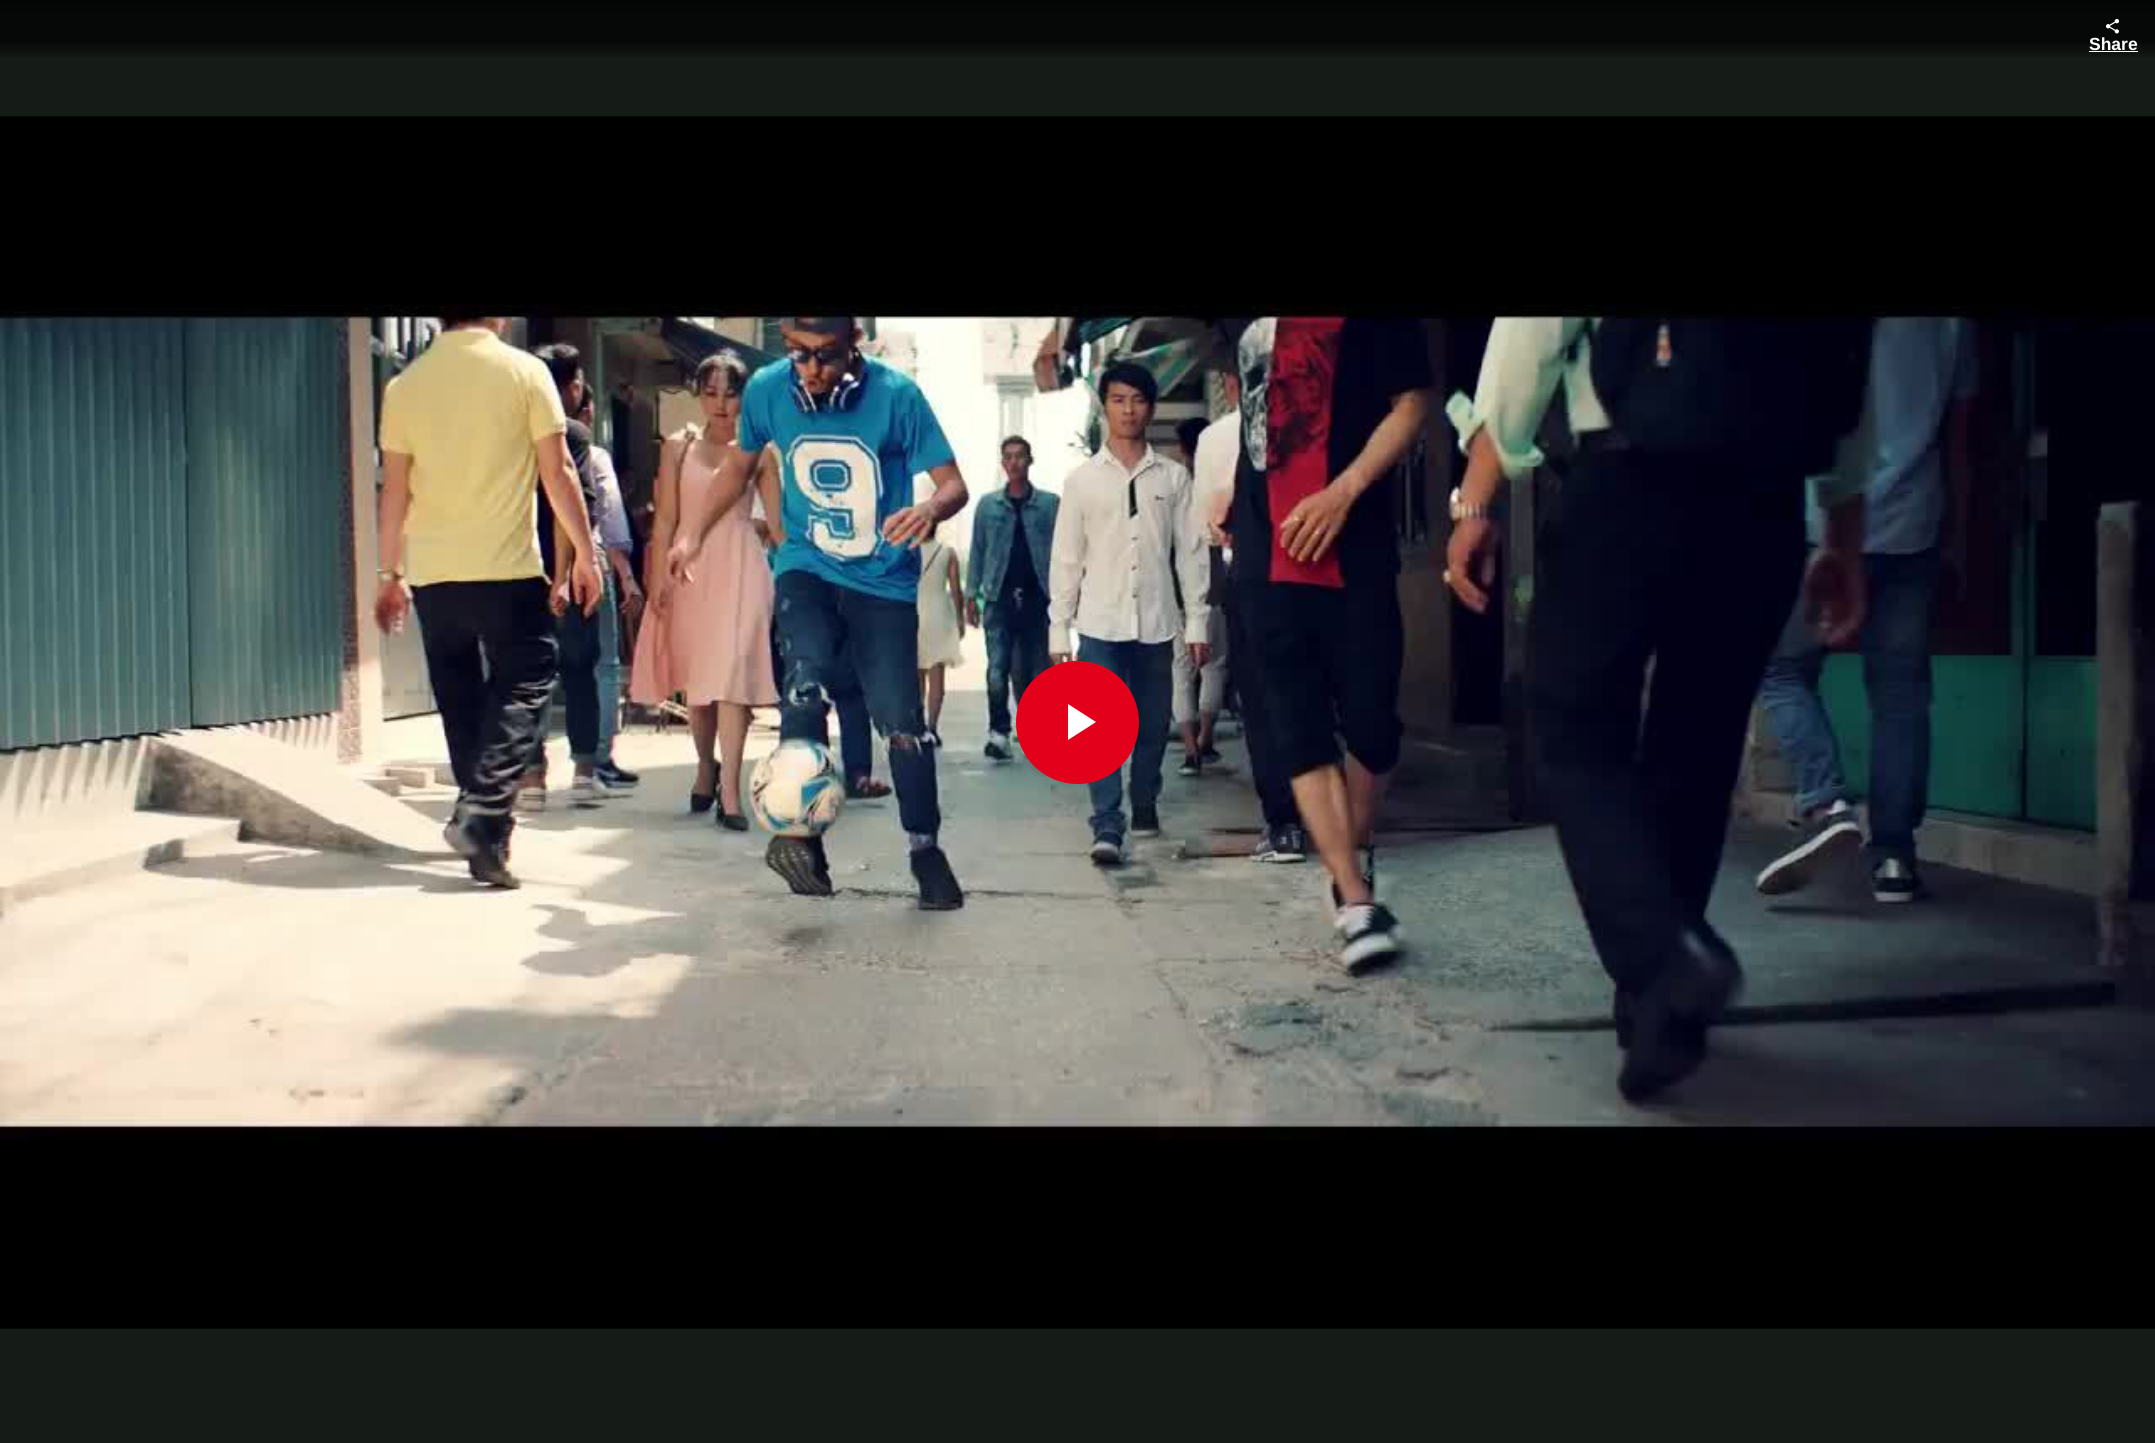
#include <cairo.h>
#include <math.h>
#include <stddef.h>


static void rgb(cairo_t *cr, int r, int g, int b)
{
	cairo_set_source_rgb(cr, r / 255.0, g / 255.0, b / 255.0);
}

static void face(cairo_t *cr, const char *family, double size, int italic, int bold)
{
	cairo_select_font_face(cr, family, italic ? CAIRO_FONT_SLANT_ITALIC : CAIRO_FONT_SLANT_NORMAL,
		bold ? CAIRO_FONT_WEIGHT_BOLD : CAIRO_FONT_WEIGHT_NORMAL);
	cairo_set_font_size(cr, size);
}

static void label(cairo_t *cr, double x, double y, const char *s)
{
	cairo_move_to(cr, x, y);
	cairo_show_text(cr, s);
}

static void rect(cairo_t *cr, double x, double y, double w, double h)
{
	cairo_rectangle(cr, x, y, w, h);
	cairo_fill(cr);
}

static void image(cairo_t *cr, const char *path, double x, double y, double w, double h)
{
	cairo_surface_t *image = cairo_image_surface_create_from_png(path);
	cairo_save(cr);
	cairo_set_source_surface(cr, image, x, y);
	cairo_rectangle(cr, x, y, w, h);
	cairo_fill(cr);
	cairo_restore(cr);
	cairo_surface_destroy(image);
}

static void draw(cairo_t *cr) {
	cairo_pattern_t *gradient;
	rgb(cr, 21, 27, 23);
	cairo_paint(cr);
	gradient = cairo_pattern_create_linear(1078, 0, 1078, 59);
	cairo_pattern_add_color_stop_rgba(gradient, 0, 0.016, 0.02, 0.02, 1);
	cairo_pattern_add_color_stop_rgba(gradient, 0.3, 0.024, 0.031, 0.027, 1);
	cairo_pattern_add_color_stop_rgba(gradient, 0.7, 0.024, 0.031, 0.027, 1);
	cairo_pattern_add_color_stop_rgba(gradient, 1, 0.082, 0.106, 0.09, 1);
	cairo_set_source(cr, gradient);
	cairo_pattern_destroy(gradient);
	rect(cr, 0, 0, 2155, 57);
	image(cr, "image0.png", 2105, 19, 15, 15);
	face(cr, "Liberation Sans", 17.5, 0, 1);
	rgb(cr, 255, 255, 255);
	label(cr, 2089, 50, "Share");
	rect(cr, 2089, 51, 49, 1);
	image(cr, "image1.png", 0, 116, 2155, 1213);
	rgb(cr, 227, 0, 26);
	cairo_arc(cr, 1077.5, 722.5, 61.5, 0, 2 * M_PI);
	cairo_fill(cr);
	rgb(cr, 255, 255, 255);
	cairo_new_path(cr);
	cairo_move_to(cr, 1068, 704);
	cairo_line_to(cr, 1068, 740);
	cairo_line_to(cr, 1096, 722);
	cairo_close_path(cr);
	cairo_fill(cr);
}

int main(void) {
	cairo_surface_t *surface = cairo_image_surface_create(CAIRO_FORMAT_RGB24, 2155, 1443);
	cairo_t *cr = cairo_create(surface);
	cairo_font_options_t *options = cairo_font_options_create();
	cairo_font_options_set_hint_metrics(options, CAIRO_HINT_METRICS_OFF);
	cairo_font_options_set_hint_style(options, CAIRO_HINT_STYLE_NONE);
	cairo_set_font_options(cr, options);
	cairo_set_miter_limit(cr, 4);
	draw(cr);
	cairo_surface_write_to_png(surface, "render.png");
	cairo_font_options_destroy(options);
	cairo_destroy(cr);
	cairo_surface_destroy(surface);
	return 0;
}
